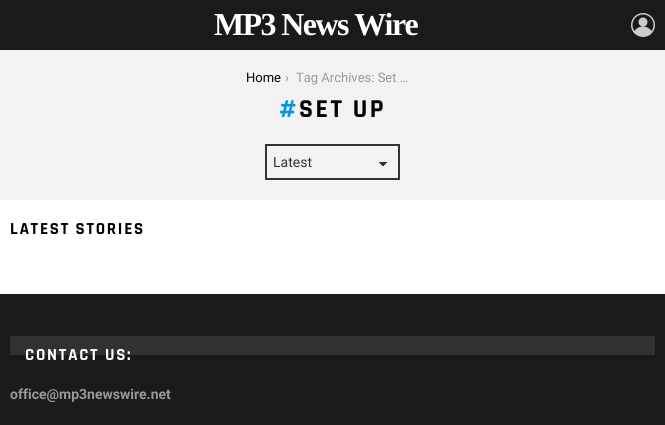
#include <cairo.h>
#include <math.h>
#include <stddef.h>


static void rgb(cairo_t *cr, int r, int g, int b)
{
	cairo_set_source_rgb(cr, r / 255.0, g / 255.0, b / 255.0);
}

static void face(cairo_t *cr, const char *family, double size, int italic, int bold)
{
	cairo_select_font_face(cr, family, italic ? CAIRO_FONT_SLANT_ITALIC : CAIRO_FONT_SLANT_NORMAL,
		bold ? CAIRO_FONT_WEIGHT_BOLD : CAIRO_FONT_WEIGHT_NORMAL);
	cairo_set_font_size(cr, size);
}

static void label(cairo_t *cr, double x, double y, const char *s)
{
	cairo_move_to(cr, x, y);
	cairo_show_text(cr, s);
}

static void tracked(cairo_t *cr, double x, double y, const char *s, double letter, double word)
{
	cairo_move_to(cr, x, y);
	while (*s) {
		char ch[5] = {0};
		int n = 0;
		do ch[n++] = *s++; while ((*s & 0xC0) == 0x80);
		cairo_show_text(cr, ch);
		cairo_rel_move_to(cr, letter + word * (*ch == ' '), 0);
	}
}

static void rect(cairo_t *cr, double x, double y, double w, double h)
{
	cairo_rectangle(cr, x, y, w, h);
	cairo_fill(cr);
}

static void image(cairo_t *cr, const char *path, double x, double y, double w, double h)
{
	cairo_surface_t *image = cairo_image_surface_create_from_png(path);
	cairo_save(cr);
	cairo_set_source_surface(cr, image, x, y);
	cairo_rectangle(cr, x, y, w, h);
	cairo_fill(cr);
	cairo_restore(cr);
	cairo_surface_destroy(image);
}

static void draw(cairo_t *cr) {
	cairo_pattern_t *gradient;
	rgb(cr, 255, 255, 255);
	cairo_paint(cr);
	rgb(cr, 26, 26, 26);
	rect(cr, 0, 0, 665, 50);
	face(cr, "Liberation Serif", 32, 0, 1);
	rgb(cr, 255, 255, 255);
	tracked(cr, 214, 35, "MP3 News Wire", -1.6, 0);
	image(cr, "image0.png", 631, 13, 24, 24);
	rgb(cr, 242, 242, 242);
	rect(cr, 0, 50, 665, 150);
	face(cr, "Roboto", 13, 0, 0);
	rgb(cr, 0, 0, 0);
	label(cr, 246, 82, "Home");
	rgb(cr, 153, 153, 153);
	label(cr, 285, 82, "›");
	label(cr, 296, 82, "Tag Archives: Set …");
	face(cr, "Rajdhani", 26, 0, 1);
	rgb(cr, 0, 150, 227);
	tracked(cr, 279, 117, "#", 2.5, 0);
	rgb(cr, 0, 0, 0);
	tracked(cr, 299, 117, "SET UP", 2.5, 0);
	gradient = cairo_pattern_create_linear(383, 162, 388, 166);
	cairo_pattern_add_color_stop_rgba(gradient, 0.5, 0.2, 0.2, 0.2, 1);
	cairo_pattern_add_color_stop_rgba(gradient, 0.5, 0.949, 0.949, 0.949, 1);
	cairo_set_source(cr, gradient);
	cairo_pattern_destroy(gradient);
	rect(cr, 383, 162, 5, 4);
	gradient = cairo_pattern_create_linear(378, 166, 383, 162);
	cairo_pattern_add_color_stop_rgba(gradient, 0.5, 0.949, 0.949, 0.949, 1);
	cairo_pattern_add_color_stop_rgba(gradient, 0.5, 0.2, 0.2, 0.2, 1);
	cairo_set_source(cr, gradient);
	cairo_pattern_destroy(gradient);
	rect(cr, 378, 162, 5, 4);
	cairo_rectangle(cr, 266, 145, 133, 34);
	rgb(cr, 51, 51, 51);
	cairo_stroke(cr);
	face(cr, "Roboto", 14, 0, 0);
	label(cr, 273, 167, "Latest");
	face(cr, "Rajdhani", 17, 0, 1);
	rgb(cr, 0, 0, 0);
	tracked(cr, 10, 234, "LATEST STORIES", 1.75, 0);
	rgb(cr, 26, 26, 26);
	rect(cr, 0, 294, 665, 131);
	rgb(cr, 49, 49, 49);
	rect(cr, 10, 336, 645, 19);
	rgb(cr, 255, 255, 255);
	tracked(cr, 25, 360, "CONTACT US:", 1.75, 0);
	face(cr, "Roboto", 14, 0, 1);
	rgb(cr, 153, 153, 153);
	label(cr, 10, 399, "office@mp3newswire.net");
}

int main(void) {
	cairo_surface_t *surface = cairo_image_surface_create(CAIRO_FORMAT_RGB24, 665, 425);
	cairo_t *cr = cairo_create(surface);
	cairo_font_options_t *options = cairo_font_options_create();
	cairo_font_options_set_hint_metrics(options, CAIRO_HINT_METRICS_OFF);
	cairo_font_options_set_hint_style(options, CAIRO_HINT_STYLE_NONE);
	cairo_set_font_options(cr, options);
	cairo_set_miter_limit(cr, 4);
	draw(cr);
	cairo_surface_write_to_png(surface, "render.png");
	cairo_font_options_destroy(options);
	cairo_destroy(cr);
	cairo_surface_destroy(surface);
	return 0;
}
